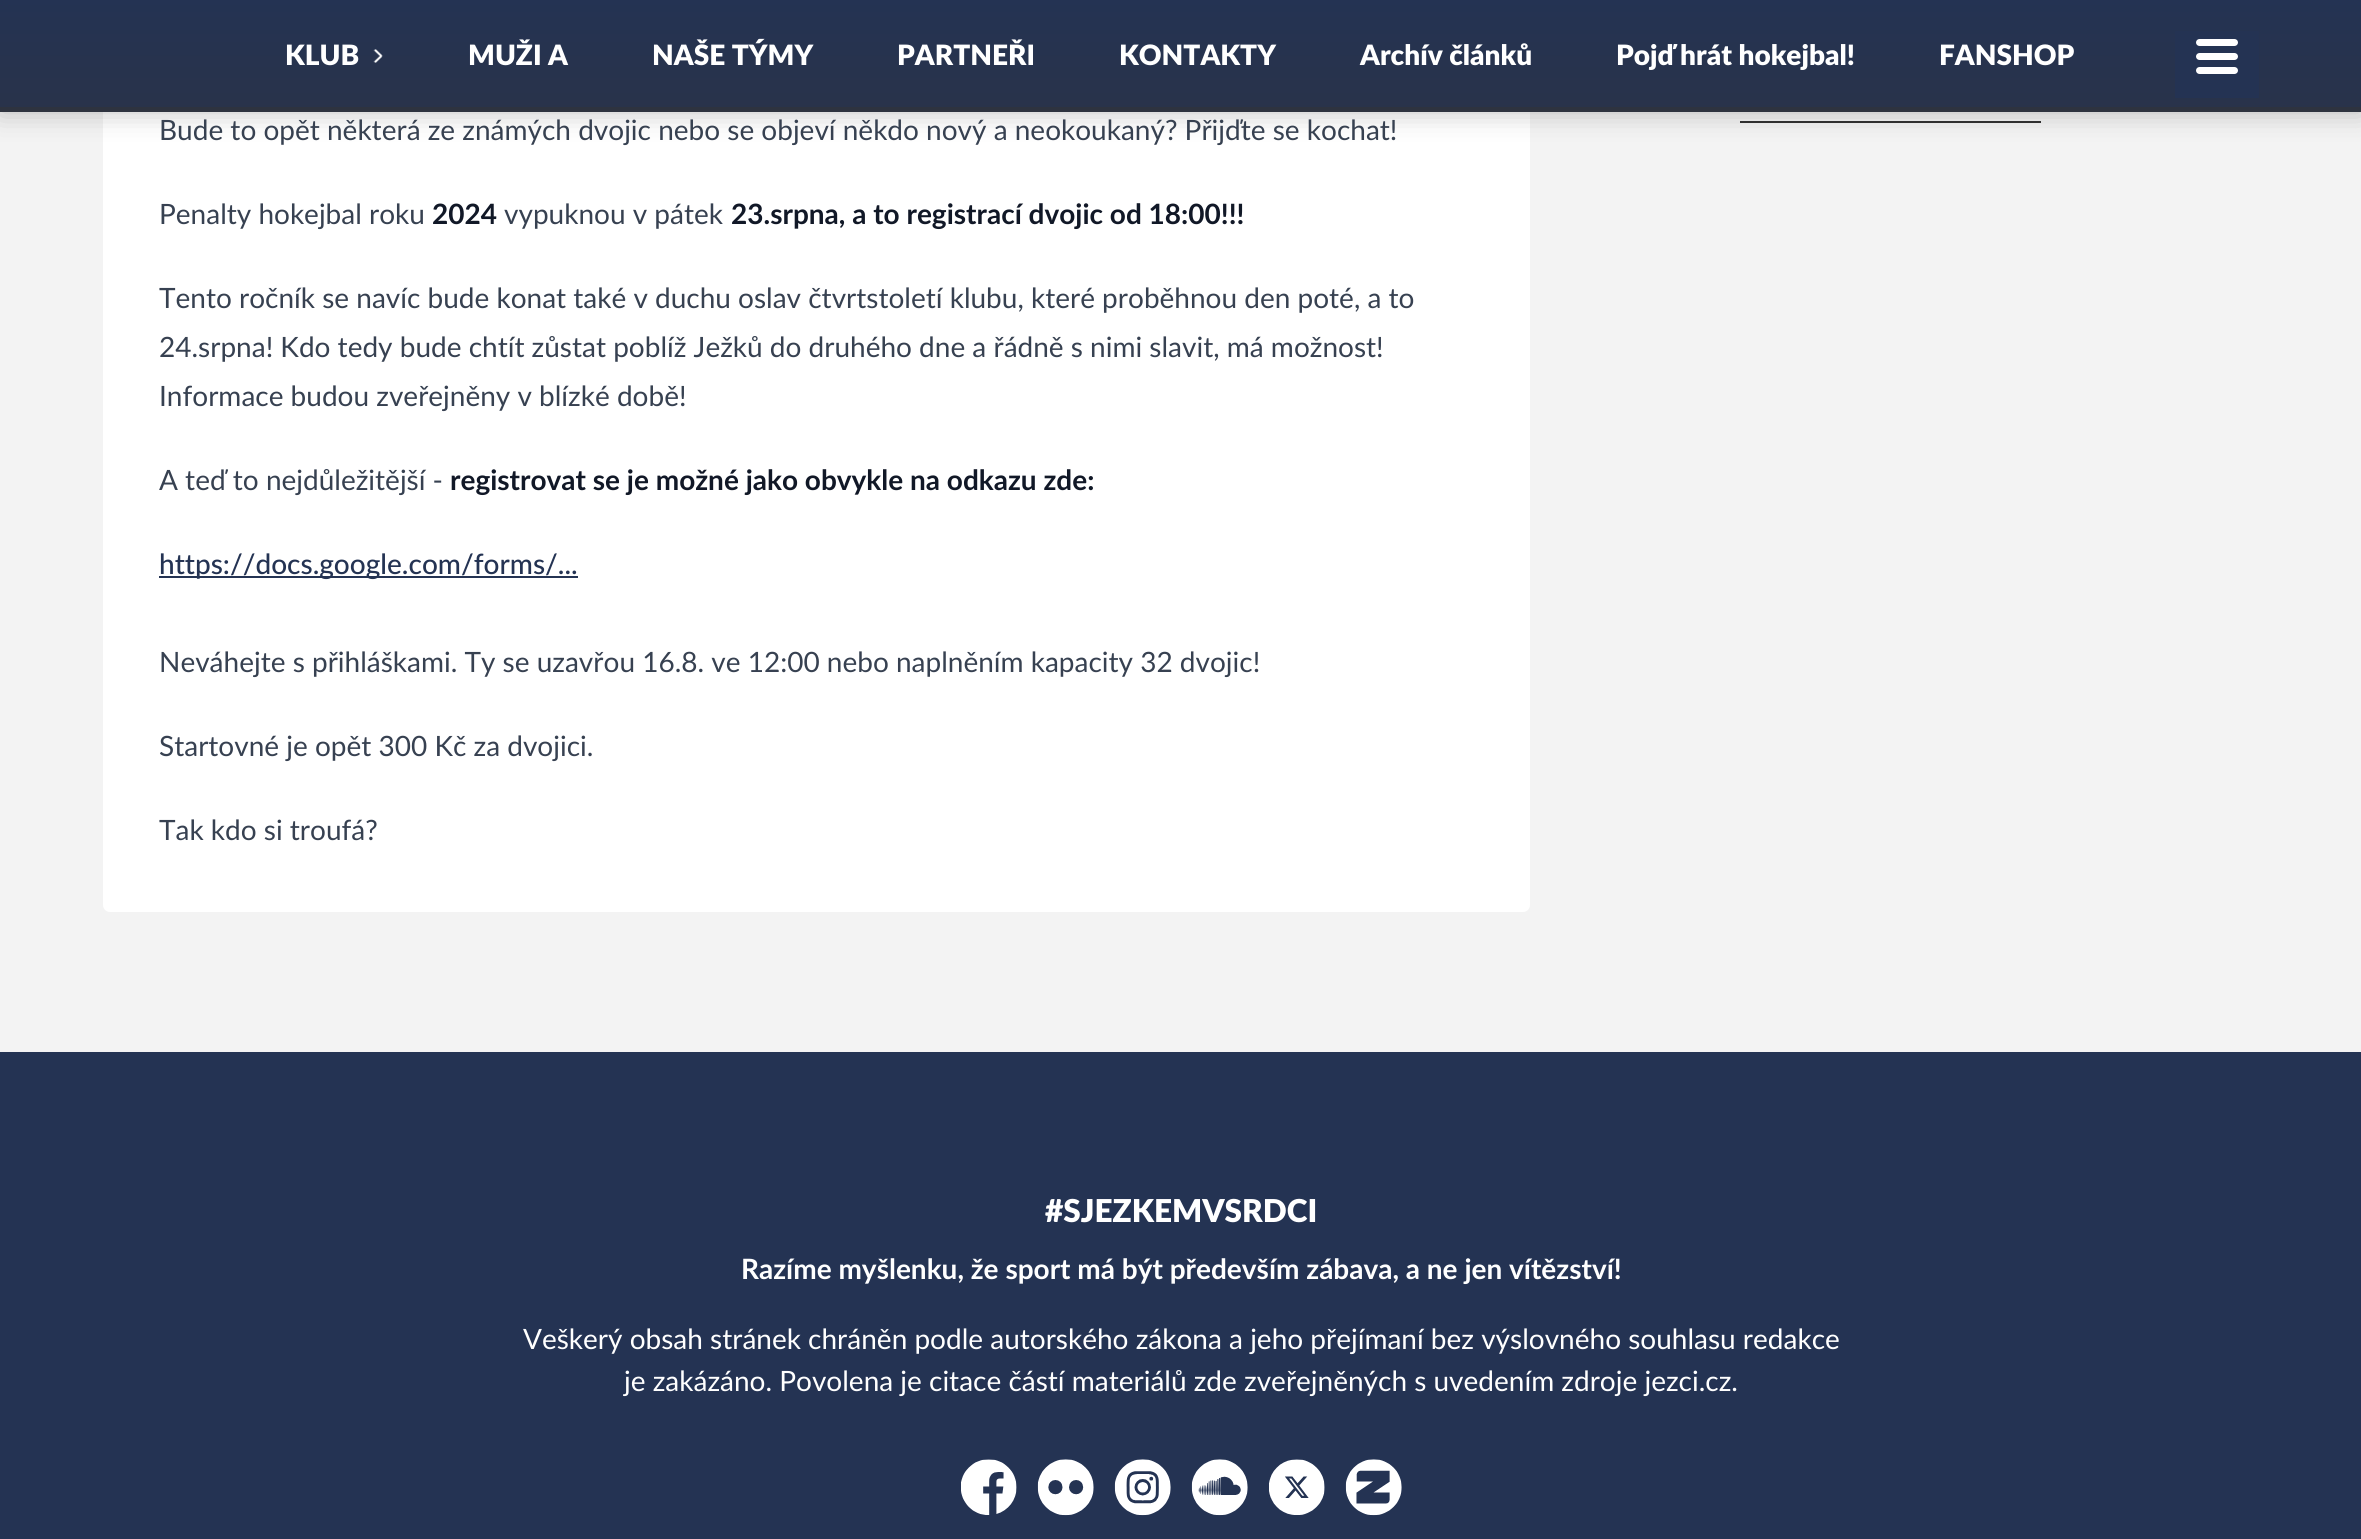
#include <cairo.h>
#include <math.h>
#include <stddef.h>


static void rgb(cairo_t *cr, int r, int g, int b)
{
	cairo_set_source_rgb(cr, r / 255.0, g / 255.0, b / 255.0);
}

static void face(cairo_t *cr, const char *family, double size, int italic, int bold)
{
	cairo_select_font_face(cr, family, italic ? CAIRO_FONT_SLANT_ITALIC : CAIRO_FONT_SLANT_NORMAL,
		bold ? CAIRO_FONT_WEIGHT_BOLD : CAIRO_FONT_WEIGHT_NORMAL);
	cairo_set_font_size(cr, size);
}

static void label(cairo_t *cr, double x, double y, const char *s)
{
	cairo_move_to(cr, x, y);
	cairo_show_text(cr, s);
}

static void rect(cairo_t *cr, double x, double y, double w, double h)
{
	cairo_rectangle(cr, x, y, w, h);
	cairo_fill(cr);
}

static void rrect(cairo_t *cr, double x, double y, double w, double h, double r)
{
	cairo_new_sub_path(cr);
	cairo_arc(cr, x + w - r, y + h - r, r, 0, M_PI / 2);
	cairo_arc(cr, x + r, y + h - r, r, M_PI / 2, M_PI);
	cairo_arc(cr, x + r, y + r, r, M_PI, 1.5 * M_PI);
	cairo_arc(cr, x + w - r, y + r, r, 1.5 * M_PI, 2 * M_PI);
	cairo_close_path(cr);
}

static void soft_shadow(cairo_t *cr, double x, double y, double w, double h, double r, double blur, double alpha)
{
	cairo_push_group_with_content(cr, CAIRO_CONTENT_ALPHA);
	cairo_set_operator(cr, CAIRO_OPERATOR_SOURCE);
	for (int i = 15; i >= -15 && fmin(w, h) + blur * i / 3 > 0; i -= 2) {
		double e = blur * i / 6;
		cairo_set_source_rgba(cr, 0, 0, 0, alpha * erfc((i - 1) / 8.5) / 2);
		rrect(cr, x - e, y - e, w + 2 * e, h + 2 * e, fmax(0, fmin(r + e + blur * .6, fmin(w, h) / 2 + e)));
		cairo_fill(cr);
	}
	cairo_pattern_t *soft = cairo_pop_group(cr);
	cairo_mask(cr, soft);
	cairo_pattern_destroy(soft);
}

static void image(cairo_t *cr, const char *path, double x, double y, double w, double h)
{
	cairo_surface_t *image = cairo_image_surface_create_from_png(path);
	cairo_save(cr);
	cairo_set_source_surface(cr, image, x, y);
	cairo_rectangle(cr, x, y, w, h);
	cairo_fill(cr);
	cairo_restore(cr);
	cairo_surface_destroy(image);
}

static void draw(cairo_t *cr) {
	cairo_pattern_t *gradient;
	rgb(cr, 243, 243, 243);
	cairo_paint(cr);
	rgb(cr, 255, 255, 255);
	rrect(cr, 103, -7, 1427, 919, 7);
	cairo_fill(cr);
	rgb(cr, 51, 51, 51);
	rect(cr, 1740, 121, 301, 2);
	rgb(cr, 0, 0, 0);
	soft_shadow(cr, 0, 0, 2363, 112, 0, 14, 0.25);
	gradient = cairo_pattern_create_linear(1181, 0, 1181, 112);
	cairo_pattern_add_color_stop_rgba(gradient, 0, 0.141, 0.2, 0.325, 1);
	cairo_pattern_add_color_stop_rgba(gradient, 1, 0.161, 0.2, 0.29, 1);
	cairo_set_source(cr, gradient);
	cairo_pattern_destroy(gradient);
	rect(cr, 0, 0, 2361, 107);
	face(cr, "Lato Black", 28, 0, 0);
	rgb(cr, 255, 255, 255);
	label(cr, 285, 65, "KLUB");
	image(cr, "image0.png", 373, 49, 10, 14);
	label(cr, 468, 65, "MUŽI A");
	label(cr, 652, 65, "NAŠE TÝMY");
	label(cr, 897, 65, "PARTNEŘI");
	label(cr, 1119, 65, "KONTAKTY");
	label(cr, 1360, 65, "Archív článků");
	label(cr, 1616, 65, "Pojď hrát hokejbal!");
	label(cr, 1939, 65, "FANSHOP");
	rgb(cr, 36, 51, 83);
	rect(cr, 2175, 31, 84, 67);
	rgb(cr, 255, 255, 255);
	rrect(cr, 2196, 39, 42, 7, 3.5);
	cairo_fill(cr);
	rrect(cr, 2196, 53, 42, 7, 3.5);
	cairo_fill(cr);
	rrect(cr, 2196, 67, 42, 7, 3.5);
	cairo_fill(cr);
	rgb(cr, 46, 51, 63);
	rect(cr, 0, 107, 2361, 5);
	face(cr, "Lato", 28, 0, 0);
	rgb(cr, 55, 65, 81);
	label(cr, 159, 140, "Bude to opět některá ze známých dvojic nebo se objeví někdo nový a neokoukaný? Přijďte se kochat!");
	label(cr, 159, 224, "Penalty hokejbal roku");
	face(cr, "Lato", 28, 0, 1);
	rgb(cr, 17, 24, 39);
	label(cr, 432, 224, "2024");
	face(cr, "Lato", 28, 0, 0);
	rgb(cr, 55, 65, 81);
	label(cr, 504, 224, "vypuknou v pátek");
	face(cr, "Lato", 28, 0, 1);
	rgb(cr, 17, 24, 39);
	label(cr, 731, 224, "23.srpna, a to registrací dvojic od 18:00!!!");
	face(cr, "Lato", 28, 0, 0);
	rgb(cr, 55, 65, 81);
	label(cr, 159, 308, "Tento ročník se navíc bude konat také v duchu oslav čtvrtstoletí klubu, které proběhnou den poté, a to");
	label(cr, 159, 357, "24.srpna! Kdo tedy bude chtít zůstat poblíž Ježků do druhého dne a řádně s nimi slavit, má možnost!");
	label(cr, 159, 406, "Informace budou zveřejněny v blízké době!");
	label(cr, 159, 490, "A teď to nejdůležitější -");
	face(cr, "Lato", 28, 0, 1);
	rgb(cr, 17, 24, 39);
	label(cr, 450, 490, "registrovat se je možné jako obvykle na odkazu zde:");
	rgb(cr, 36, 51, 83);
	rect(cr, 159, 576, 419, 2);
	face(cr, "Lato Medium", 28, 0, 0);
	label(cr, 159, 574, "https://docs.google.com/forms/...");
	face(cr, "Lato", 28, 0, 0);
	rgb(cr, 55, 65, 81);
	label(cr, 159, 672, "Neváhejte s přihláškami. Ty se uzavřou 16.8. ve 12:00 nebo naplněním kapacity 32 dvojic!");
	label(cr, 159, 756, "Startovné je opět 300 Kč za dvojici.");
	label(cr, 159, 840, "Tak kdo si troufá?");
	rgb(cr, 36, 51, 83);
	rect(cr, 0, 1052, 2361, 487);
	face(cr, "Lato Black", 31.5, 0, 0);
	rgb(cr, 255, 255, 255);
	label(cr, 1045, 1222, "#SJEZKEMVSRDCI");
	face(cr, "Lato", 28, 0, 1);
	label(cr, 741, 1279, "Razíme myšlenku, že sport má být především zábava, a ne jen vítězství!");
	face(cr, "Lato", 28, 0, 0);
	label(cr, 523, 1349, "Veškerý obsah stránek chráněn podle autorského zákona a jeho přejímaní bez výslovného souhlasu redakce");
	label(cr, 624, 1391, "je zakázáno. Povolena je citace částí materiálů zde zveřejněných s uvedením zdroje jezci.cz.");
	image(cr, "image1.png", 961, 1459, 56, 56);
	image(cr, "image2.png", 1037, 1459, 57, 57);
	image(cr, "image3.png", 1114, 1459, 57, 57);
	image(cr, "image4.png", 1191, 1459, 57, 57);
	image(cr, "image5.png", 1269, 1459, 56, 56);
	image(cr, "image6.png", 1345, 1459, 57, 57);
}

int main(void) {
	cairo_surface_t *surface = cairo_image_surface_create(CAIRO_FORMAT_RGB24, 2361, 1539);
	cairo_t *cr = cairo_create(surface);
	cairo_font_options_t *options = cairo_font_options_create();
	cairo_font_options_set_hint_metrics(options, CAIRO_HINT_METRICS_OFF);
	cairo_font_options_set_hint_style(options, CAIRO_HINT_STYLE_NONE);
	cairo_set_font_options(cr, options);
	cairo_set_miter_limit(cr, 4);
	draw(cr);
	cairo_surface_write_to_png(surface, "render.png");
	cairo_font_options_destroy(options);
	cairo_destroy(cr);
	cairo_surface_destroy(surface);
	return 0;
}
